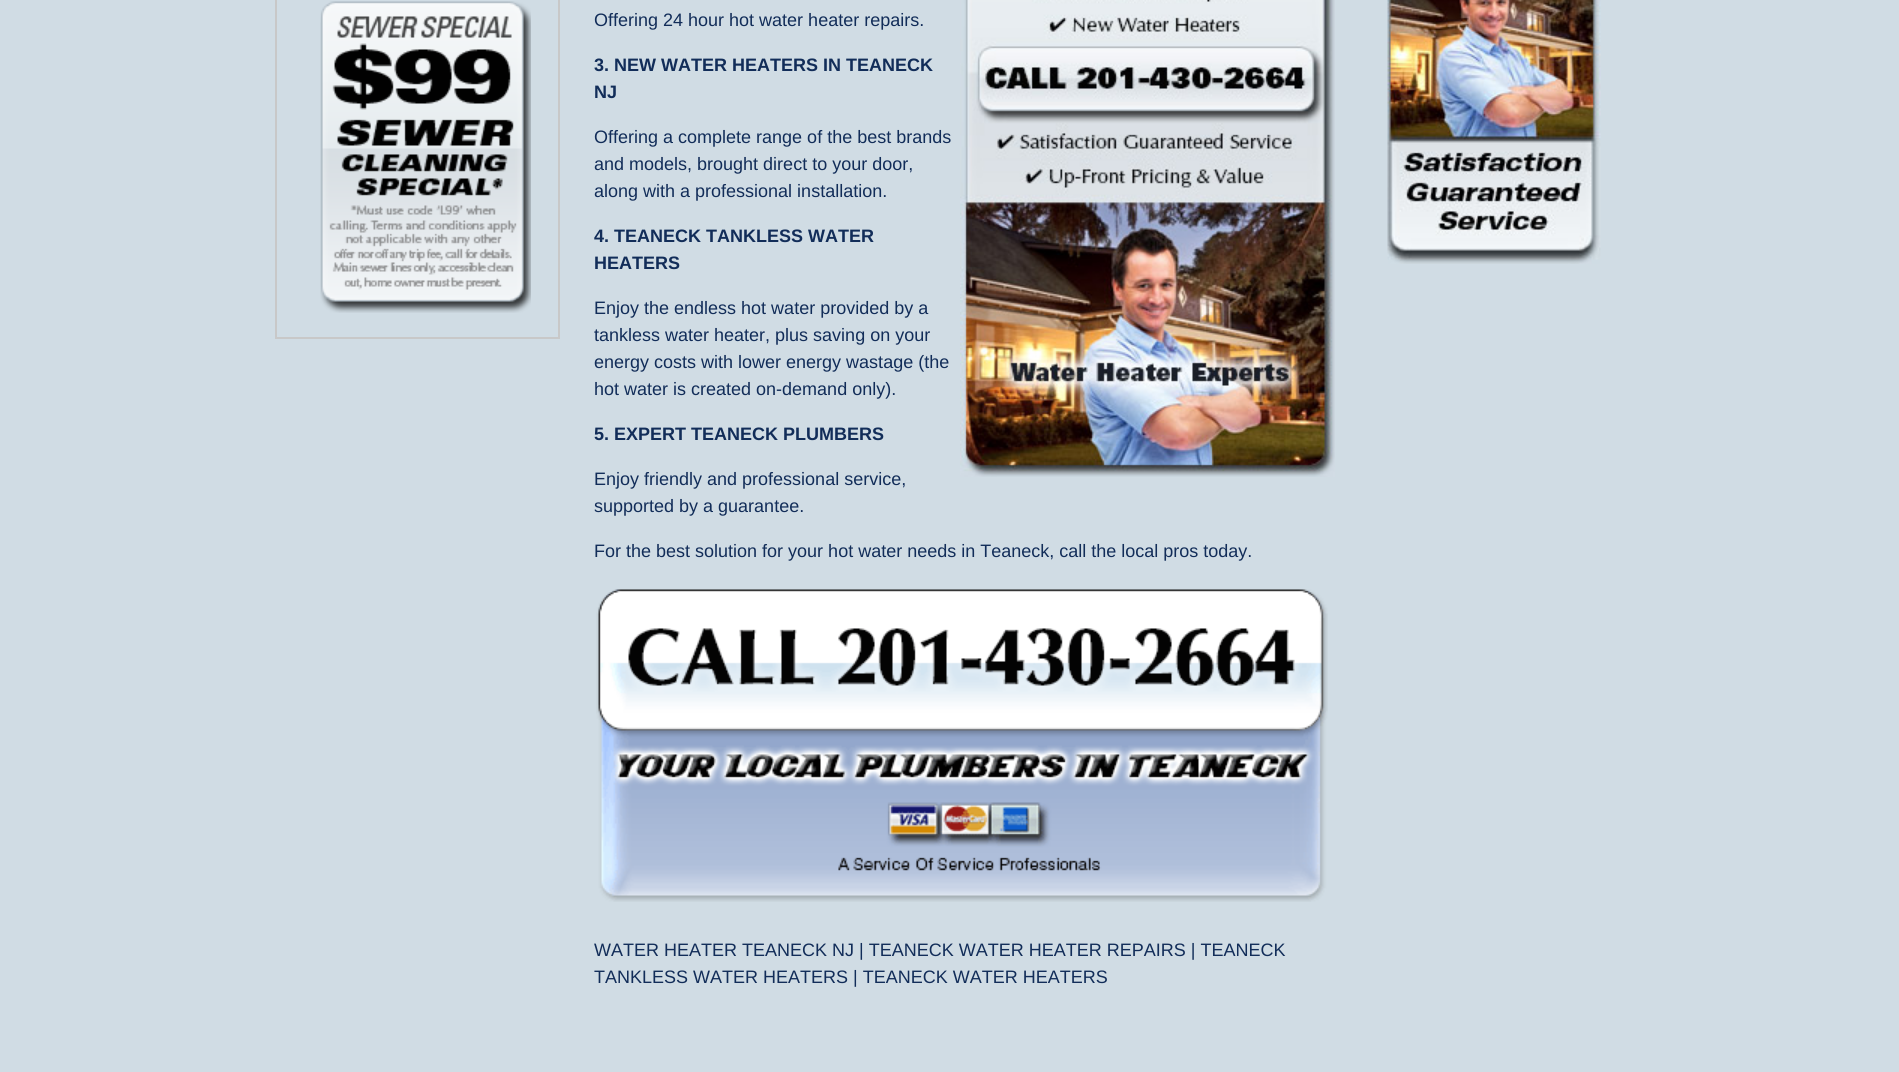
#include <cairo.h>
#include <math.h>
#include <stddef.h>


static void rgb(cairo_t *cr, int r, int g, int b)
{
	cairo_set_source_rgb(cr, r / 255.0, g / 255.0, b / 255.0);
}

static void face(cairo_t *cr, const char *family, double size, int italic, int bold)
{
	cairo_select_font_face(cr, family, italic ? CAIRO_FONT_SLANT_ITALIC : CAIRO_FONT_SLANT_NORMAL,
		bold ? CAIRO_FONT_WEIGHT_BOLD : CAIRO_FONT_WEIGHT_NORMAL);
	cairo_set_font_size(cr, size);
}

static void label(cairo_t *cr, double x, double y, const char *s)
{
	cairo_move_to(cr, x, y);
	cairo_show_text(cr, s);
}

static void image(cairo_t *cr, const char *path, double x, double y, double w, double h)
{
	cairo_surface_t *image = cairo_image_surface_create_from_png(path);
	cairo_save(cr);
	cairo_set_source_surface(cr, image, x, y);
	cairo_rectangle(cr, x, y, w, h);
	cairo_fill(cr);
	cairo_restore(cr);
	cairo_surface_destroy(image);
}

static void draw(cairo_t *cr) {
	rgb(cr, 208, 220, 228);
	cairo_paint(cr);
	cairo_rectangle(cr, 276, -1, 283, 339);
	rgb(cr, 200, 200, 200);
	cairo_stroke(cr);
	image(cr, "image0.png", 320, 1, 211, 312);
	face(cr, "Liberation Sans", 18, 0, 0);
	rgb(cr, 18, 45, 89);
	label(cr, 594, 26, "Offering 24 hour hot water heater repairs.");
	image(cr, "image1.png", 960, 0, 375, 477);
	face(cr, "Liberation Sans", 18, 0, 1);
	label(cr, 594, 71, "3. NEW WATER HEATERS IN TEANECK");
	label(cr, 594, 98, "NJ");
	face(cr, "Liberation Sans", 18, 0, 0);
	label(cr, 594, 143, "Offering a complete range of the best brands");
	label(cr, 594, 170, "and models, brought direct to your door,");
	label(cr, 594, 197, "along with a professional installation.");
	face(cr, "Liberation Sans", 18, 0, 1);
	label(cr, 594, 242, "4. TEANECK TANKLESS WATER");
	label(cr, 594, 269, "HEATERS");
	face(cr, "Liberation Sans", 18, 0, 0);
	label(cr, 594, 314, "Enjoy the endless hot water provided by a");
	label(cr, 594, 341, "tankless water heater, plus saving on your");
	label(cr, 594, 368, "energy costs with lower energy wastage (the");
	label(cr, 594, 395, "hot water is created on-demand only).");
	face(cr, "Liberation Sans", 18, 0, 1);
	label(cr, 594, 440, "5. EXPERT TEANECK PLUMBERS");
	face(cr, "Liberation Sans", 18, 0, 0);
	label(cr, 594, 485, "Enjoy friendly and professional service,");
	label(cr, 594, 512, "supported by a guarantee.");
	label(cr, 594, 557, "For the best solution for your hot water needs in Teaneck, call the local pros today.");
	image(cr, "image2.png", 596, 589, 732, 313);
	label(cr, 594, 956, "WATER HEATER TEANECK NJ | TEANECK WATER HEATER REPAIRS | TEANECK");
	label(cr, 594, 983, "TANKLESS WATER HEATERS | TEANECK WATER HEATERS");
	image(cr, "image3.png", 1387, 0, 214, 264);
}

int main(void) {
	cairo_surface_t *surface = cairo_image_surface_create(CAIRO_FORMAT_RGB24, 1899, 1072);
	cairo_t *cr = cairo_create(surface);
	cairo_font_options_t *options = cairo_font_options_create();
	cairo_font_options_set_hint_metrics(options, CAIRO_HINT_METRICS_OFF);
	cairo_font_options_set_hint_style(options, CAIRO_HINT_STYLE_NONE);
	cairo_set_font_options(cr, options);
	cairo_set_miter_limit(cr, 4);
	draw(cr);
	cairo_surface_write_to_png(surface, "render.png");
	cairo_font_options_destroy(options);
	cairo_destroy(cr);
	cairo_surface_destroy(surface);
	return 0;
}
